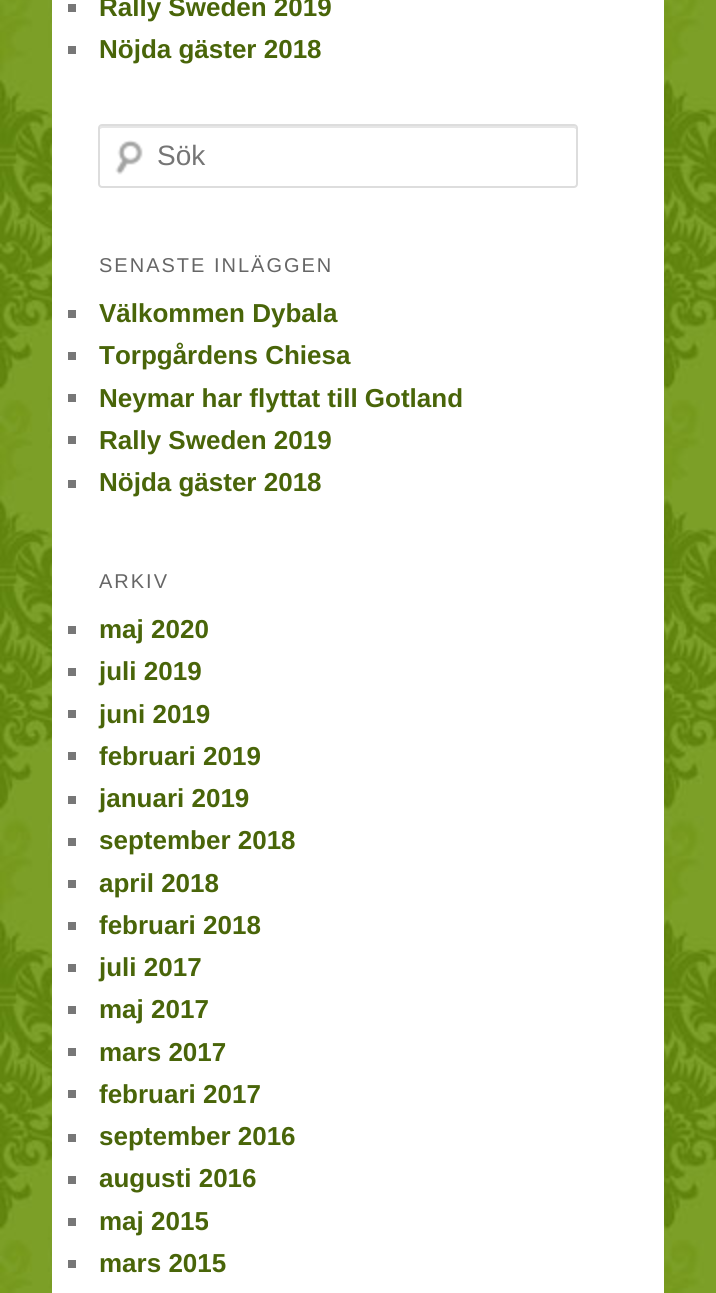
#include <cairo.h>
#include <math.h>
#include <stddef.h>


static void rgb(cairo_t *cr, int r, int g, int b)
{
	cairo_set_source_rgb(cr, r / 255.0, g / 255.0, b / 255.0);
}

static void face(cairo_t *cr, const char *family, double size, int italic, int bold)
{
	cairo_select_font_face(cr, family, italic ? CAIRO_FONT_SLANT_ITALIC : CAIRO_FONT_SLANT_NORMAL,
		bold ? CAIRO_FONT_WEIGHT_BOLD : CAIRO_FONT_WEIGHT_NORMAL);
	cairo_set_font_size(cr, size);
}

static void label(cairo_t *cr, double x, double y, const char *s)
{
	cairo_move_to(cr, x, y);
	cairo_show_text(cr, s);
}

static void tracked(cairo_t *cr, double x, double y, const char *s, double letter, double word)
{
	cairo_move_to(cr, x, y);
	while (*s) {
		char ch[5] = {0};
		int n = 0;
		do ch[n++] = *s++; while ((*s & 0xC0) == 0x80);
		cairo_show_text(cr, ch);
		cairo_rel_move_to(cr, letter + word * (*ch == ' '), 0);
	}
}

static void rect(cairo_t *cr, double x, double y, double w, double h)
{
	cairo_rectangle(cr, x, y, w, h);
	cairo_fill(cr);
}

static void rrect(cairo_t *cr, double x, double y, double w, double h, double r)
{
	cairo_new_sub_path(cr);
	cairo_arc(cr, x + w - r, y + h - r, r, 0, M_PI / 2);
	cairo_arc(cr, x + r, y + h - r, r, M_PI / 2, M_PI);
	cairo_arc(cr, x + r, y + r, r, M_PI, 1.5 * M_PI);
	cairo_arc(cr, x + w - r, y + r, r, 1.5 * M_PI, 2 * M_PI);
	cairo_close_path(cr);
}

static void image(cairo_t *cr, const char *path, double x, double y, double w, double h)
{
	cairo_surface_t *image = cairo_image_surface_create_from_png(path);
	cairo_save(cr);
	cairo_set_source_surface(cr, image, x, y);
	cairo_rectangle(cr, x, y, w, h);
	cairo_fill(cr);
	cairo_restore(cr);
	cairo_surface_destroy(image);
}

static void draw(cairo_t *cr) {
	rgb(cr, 255, 255, 255);
	cairo_paint(cr);
	image(cr, "image0.png", 0, 0, 716, 1293);
	rgb(cr, 255, 255, 255);
	rect(cr, 52, 0, 612, 1293);
	rgb(cr, 119, 119, 119);
	rect(cr, 68, 4, 8, 8);
	face(cr, "Liberation Sans", 26, 0, 1);
	rgb(cr, 73, 101, 9);
	label(cr, 99, 16, "Rally Sweden 2019");
	rgb(cr, 119, 119, 119);
	rect(cr, 68, 46, 8, 8);
	rgb(cr, 73, 101, 9);
	label(cr, 99, 58, "Nöjda gäster 2018");
	image(cr, "image1.png", 115, 140, 28, 35);
	rgb(cr, 230, 230, 230);
	cairo_new_path(cr);
	cairo_move_to(cr, 102, 128);
	cairo_line_to(cr, 574, 128);
	cairo_line_to(cr, 576, 129);
	cairo_line_to(cr, 576, 128);
	cairo_curve_to(cr, 576, 127, 575, 126, 574, 126);
	cairo_line_to(cr, 102, 126);
	cairo_curve_to(cr, 101, 126, 100, 127, 100, 128);
	cairo_line_to(cr, 100, 129);
	cairo_close_path(cr);
	cairo_fill(cr);
	rrect(cr, 99, 125, 478, 62, 3);
	rgb(cr, 221, 221, 221);
	cairo_stroke(cr);
	face(cr, "Liberation Sans", 28, 0, 0);
	rgb(cr, 117, 117, 117);
	label(cr, 157, 165, "Sök");
	face(cr, "Liberation Sans", 20, 0, 0);
	rgb(cr, 102, 102, 102);
	tracked(cr, 99, 272, "SENASTE INLÄGGEN", 2, 0);
	rgb(cr, 119, 119, 119);
	rect(cr, 68, 310, 8, 8);
	face(cr, "Liberation Sans", 26, 0, 1);
	rgb(cr, 73, 101, 9);
	label(cr, 99, 322, "Välkommen Dybala");
	rgb(cr, 119, 119, 119);
	rect(cr, 68, 352, 8, 8);
	rgb(cr, 73, 101, 9);
	label(cr, 99, 364, "Torpgårdens Chiesa");
	rgb(cr, 119, 119, 119);
	rect(cr, 68, 394, 8, 8);
	rgb(cr, 73, 101, 9);
	label(cr, 99, 407, "Neymar har flyttat till Gotland");
	rgb(cr, 119, 119, 119);
	rect(cr, 68, 436, 8, 8);
	rgb(cr, 73, 101, 9);
	label(cr, 99, 449, "Rally Sweden 2019");
	rgb(cr, 119, 119, 119);
	rect(cr, 68, 480, 8, 8);
	rgb(cr, 73, 101, 9);
	label(cr, 99, 491, "Nöjda gäster 2018");
	face(cr, "Liberation Sans", 20, 0, 0);
	rgb(cr, 102, 102, 102);
	tracked(cr, 99, 588, "ARKIV", 2, 0);
	rgb(cr, 119, 119, 119);
	rect(cr, 68, 626, 8, 8);
	face(cr, "Liberation Sans", 26, 0, 1);
	rgb(cr, 73, 101, 9);
	label(cr, 99, 638, "maj 2020");
	rgb(cr, 119, 119, 119);
	rect(cr, 68, 668, 8, 8);
	rgb(cr, 73, 101, 9);
	label(cr, 99, 680, "juli 2019");
	rgb(cr, 119, 119, 119);
	rect(cr, 68, 710, 8, 8);
	rgb(cr, 73, 101, 9);
	label(cr, 99, 723, "juni 2019");
	rgb(cr, 119, 119, 119);
	rect(cr, 68, 752, 8, 8);
	rgb(cr, 73, 101, 9);
	label(cr, 99, 765, "februari 2019");
	rgb(cr, 119, 119, 119);
	rect(cr, 68, 796, 8, 8);
	rgb(cr, 73, 101, 9);
	label(cr, 99, 807, "januari 2019");
	rgb(cr, 119, 119, 119);
	rect(cr, 68, 838, 8, 8);
	rgb(cr, 73, 101, 9);
	label(cr, 99, 849, "september 2018");
	rgb(cr, 119, 119, 119);
	rect(cr, 68, 880, 8, 8);
	rgb(cr, 73, 101, 9);
	label(cr, 99, 892, "april 2018");
	rgb(cr, 119, 119, 119);
	rect(cr, 68, 922, 8, 8);
	rgb(cr, 73, 101, 9);
	label(cr, 99, 934, "februari 2018");
	rgb(cr, 119, 119, 119);
	rect(cr, 68, 964, 8, 8);
	rgb(cr, 73, 101, 9);
	label(cr, 99, 976, "juli 2017");
	rgb(cr, 119, 119, 119);
	rect(cr, 68, 1006, 8, 8);
	rgb(cr, 73, 101, 9);
	label(cr, 99, 1018, "maj 2017");
	rgb(cr, 119, 119, 119);
	rect(cr, 68, 1048, 8, 8);
	rgb(cr, 73, 101, 9);
	label(cr, 99, 1061, "mars 2017");
	rgb(cr, 119, 119, 119);
	rect(cr, 68, 1090, 8, 8);
	rgb(cr, 73, 101, 9);
	label(cr, 99, 1103, "februari 2017");
	rgb(cr, 119, 119, 119);
	rect(cr, 68, 1134, 8, 8);
	rgb(cr, 73, 101, 9);
	label(cr, 99, 1145, "september 2016");
	rgb(cr, 119, 119, 119);
	rect(cr, 68, 1176, 8, 8);
	rgb(cr, 73, 101, 9);
	label(cr, 99, 1187, "augusti 2016");
	rgb(cr, 119, 119, 119);
	rect(cr, 68, 1218, 8, 8);
	rgb(cr, 73, 101, 9);
	label(cr, 99, 1230, "maj 2015");
	rgb(cr, 119, 119, 119);
	rect(cr, 68, 1260, 8, 8);
	rgb(cr, 73, 101, 9);
	label(cr, 99, 1272, "mars 2015");
}

int main(void) {
	cairo_surface_t *surface = cairo_image_surface_create(CAIRO_FORMAT_RGB24, 716, 1293);
	cairo_t *cr = cairo_create(surface);
	cairo_font_options_t *options = cairo_font_options_create();
	cairo_font_options_set_hint_metrics(options, CAIRO_HINT_METRICS_OFF);
	cairo_font_options_set_hint_style(options, CAIRO_HINT_STYLE_NONE);
	cairo_set_font_options(cr, options);
	cairo_set_miter_limit(cr, 4);
	draw(cr);
	cairo_surface_write_to_png(surface, "render.png");
	cairo_font_options_destroy(options);
	cairo_destroy(cr);
	cairo_surface_destroy(surface);
	return 0;
}
